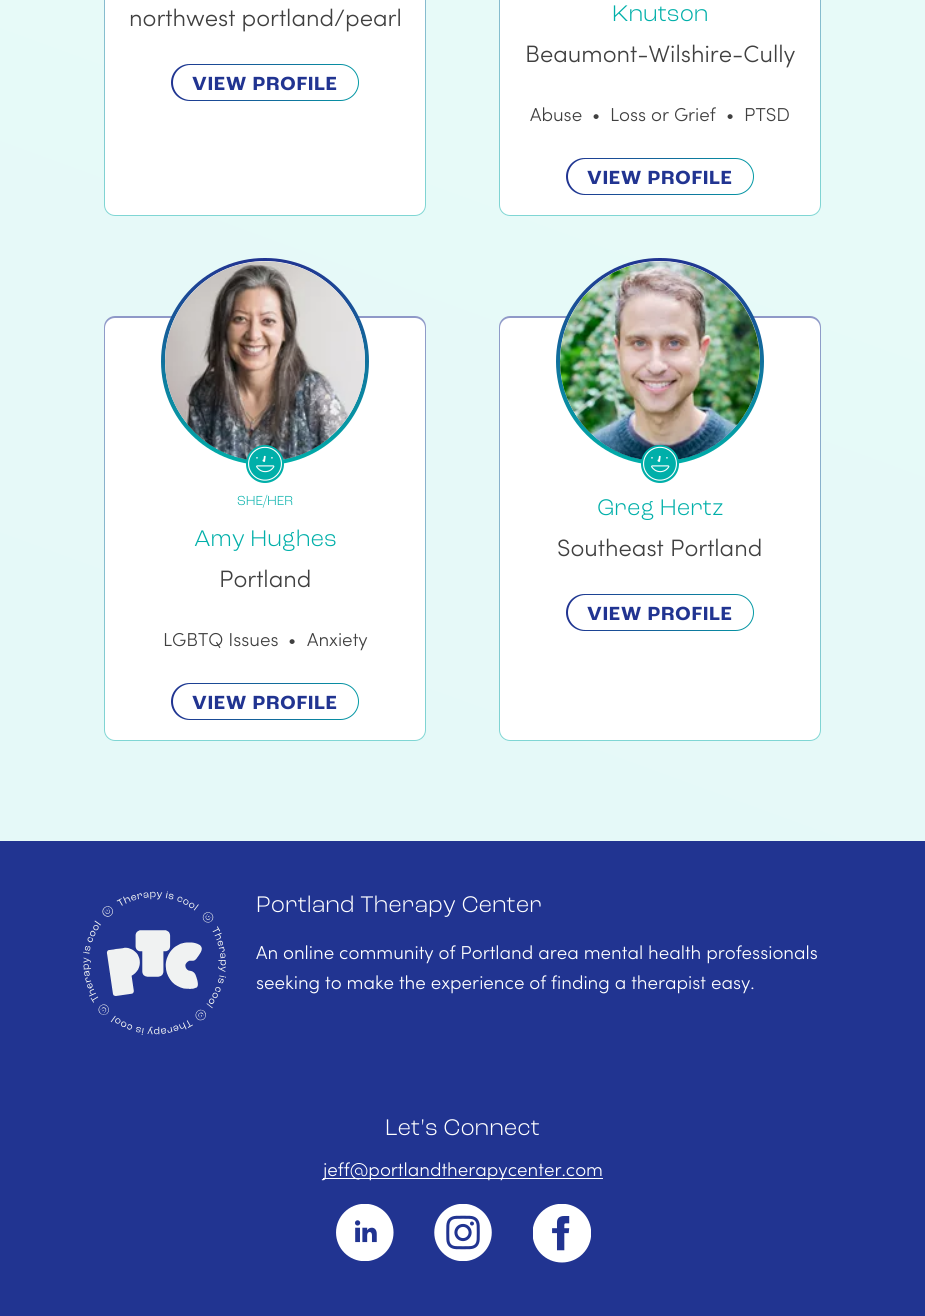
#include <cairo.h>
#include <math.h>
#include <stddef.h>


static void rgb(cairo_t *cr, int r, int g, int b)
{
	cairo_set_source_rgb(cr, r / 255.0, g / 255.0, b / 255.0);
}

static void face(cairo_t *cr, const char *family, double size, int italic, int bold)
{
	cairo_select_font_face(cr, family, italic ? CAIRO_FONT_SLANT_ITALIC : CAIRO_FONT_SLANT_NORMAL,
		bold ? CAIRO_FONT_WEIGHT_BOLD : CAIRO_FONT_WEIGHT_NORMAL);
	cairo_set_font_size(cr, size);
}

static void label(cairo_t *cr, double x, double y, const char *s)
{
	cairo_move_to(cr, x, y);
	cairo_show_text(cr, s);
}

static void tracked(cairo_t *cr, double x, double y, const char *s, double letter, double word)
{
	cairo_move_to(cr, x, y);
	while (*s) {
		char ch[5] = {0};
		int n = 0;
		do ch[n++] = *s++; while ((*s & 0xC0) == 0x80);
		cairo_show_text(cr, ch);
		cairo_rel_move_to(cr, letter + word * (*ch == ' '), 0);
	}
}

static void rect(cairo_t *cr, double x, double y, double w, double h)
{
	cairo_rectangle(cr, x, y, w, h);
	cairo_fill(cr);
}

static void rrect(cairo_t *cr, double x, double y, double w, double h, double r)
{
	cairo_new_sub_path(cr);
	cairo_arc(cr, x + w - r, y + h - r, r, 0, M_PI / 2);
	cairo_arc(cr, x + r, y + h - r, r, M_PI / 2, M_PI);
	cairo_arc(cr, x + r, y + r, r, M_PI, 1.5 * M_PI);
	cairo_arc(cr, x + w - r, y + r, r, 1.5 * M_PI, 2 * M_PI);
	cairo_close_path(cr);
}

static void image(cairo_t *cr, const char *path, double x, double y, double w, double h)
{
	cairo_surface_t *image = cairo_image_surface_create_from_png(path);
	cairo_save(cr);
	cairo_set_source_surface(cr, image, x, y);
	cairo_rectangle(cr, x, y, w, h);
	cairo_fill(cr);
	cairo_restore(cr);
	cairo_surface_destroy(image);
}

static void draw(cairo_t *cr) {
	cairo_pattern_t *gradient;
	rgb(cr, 255, 255, 255);
	cairo_paint(cr);
	gradient = cairo_pattern_create_linear(-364, 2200, 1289, -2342);
	cairo_pattern_add_color_stop_rgba(gradient, 0, 0.886, 0.976, 0.969, 1);
	cairo_pattern_add_color_stop_rgba(gradient, 0.7, 0.914, 0.98, 0.976, 1);
	cairo_pattern_add_color_stop_rgba(gradient, 1, 1, 1, 1, 1);
	cairo_set_source(cr, gradient);
	cairo_pattern_destroy(gradient);
	rect(cr, 0, 0, 925, 841);
	rgb(cr, 255, 255, 255);
	rrect(cr, 104, -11, 322, 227, 11);
	cairo_fill(cr);
	gradient = cairo_pattern_create_linear(265, -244, 265, 216);
	cairo_pattern_add_color_stop_rgba(gradient, 0, 0.129, 0.204, 0.569, 0.5);
	cairo_pattern_add_color_stop_rgba(gradient, 1, 0, 0.686, 0.663, 0.5);
	cairo_set_source(cr, gradient);
	cairo_pattern_destroy(gradient);
	rrect(cr, 104, -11, 322, 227, 11);
	cairo_fill(cr);
	rgb(cr, 255, 255, 255);
	rrect(cr, 105, -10, 320, 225, 10);
	cairo_fill(cr);
	face(cr, "Sofia Light", 23.75, 0, 0);
	rgb(cr, 64, 64, 64);
	label(cr, 129, 26, "northwest portland/pearl");
	gradient = cairo_pattern_create_linear(359, 83, 171, 83);
	cairo_pattern_add_color_stop_rgba(gradient, 0, 0.02, 0.604, 0.647, 1);
	cairo_pattern_add_color_stop_rgba(gradient, 1, 0.129, 0.2, 0.569, 1);
	cairo_set_source(cr, gradient);
	cairo_pattern_destroy(gradient);
	rrect(cr, 171, 64, 188, 37, 18.5);
	cairo_fill(cr);
	rgb(cr, 255, 255, 255);
	rrect(cr, 173, 65, 185, 35, 17.5);
	cairo_fill(cr);
	face(cr, "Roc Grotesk", 20, 0, 1);
	rgb(cr, 33, 52, 145);
	tracked(cr, 192, 90, "VIEW PROFILE", 1, 0);
	rgb(cr, 255, 255, 255);
	rrect(cr, 499, -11, 322, 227, 11);
	cairo_fill(cr);
	gradient = cairo_pattern_create_linear(660, -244, 660, 216);
	cairo_pattern_add_color_stop_rgba(gradient, 0, 0.129, 0.204, 0.569, 0.5);
	cairo_pattern_add_color_stop_rgba(gradient, 1, 0, 0.686, 0.663, 0.5);
	cairo_set_source(cr, gradient);
	cairo_pattern_destroy(gradient);
	rrect(cr, 499, -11, 322, 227, 11);
	cairo_fill(cr);
	rgb(cr, 255, 255, 255);
	rrect(cr, 500, -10, 320, 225, 10);
	cairo_fill(cr);
	face(cr, "Roc Grotesk Light", 23.75, 0, 0);
	rgb(cr, 0, 175, 169);
	label(cr, 612, 21, "Knutson");
	face(cr, "Sofia Light", 23.75, 0, 0);
	rgb(cr, 64, 64, 64);
	label(cr, 525, 62, "Beaumont-Wilshire-Cully");
	face(cr, "Sofia Light", 18.75, 0, 0);
	label(cr, 530, 121, "Abuse");
	label(cr, 592, 121, "•");
	label(cr, 610, 121, "Loss or Grief");
	label(cr, 726, 121, "•");
	label(cr, 744, 121, "PTSD");
	gradient = cairo_pattern_create_linear(754, 176, 566, 176);
	cairo_pattern_add_color_stop_rgba(gradient, 0, 0.02, 0.604, 0.647, 1);
	cairo_pattern_add_color_stop_rgba(gradient, 1, 0.129, 0.2, 0.569, 1);
	cairo_set_source(cr, gradient);
	cairo_pattern_destroy(gradient);
	rrect(cr, 566, 158, 188, 37, 18.5);
	cairo_fill(cr);
	rgb(cr, 255, 255, 255);
	rrect(cr, 568, 159, 185, 35, 17.5);
	cairo_fill(cr);
	face(cr, "Roc Grotesk", 20, 0, 1);
	rgb(cr, 33, 52, 145);
	tracked(cr, 587, 184, "VIEW PROFILE", 1, 0);
	rgb(cr, 255, 255, 255);
	rrect(cr, 104, 316, 322, 425, 11);
	cairo_fill(cr);
	gradient = cairo_pattern_create_linear(265, 316, 265, 741);
	cairo_pattern_add_color_stop_rgba(gradient, 0, 0.129, 0.204, 0.569, 0.5);
	cairo_pattern_add_color_stop_rgba(gradient, 1, 0, 0.686, 0.663, 0.5);
	cairo_set_source(cr, gradient);
	cairo_pattern_destroy(gradient);
	rrect(cr, 104, 316, 322, 425, 11);
	cairo_fill(cr);
	rgb(cr, 255, 255, 255);
	rrect(cr, 105, 318, 320, 422, 10);
	cairo_fill(cr);
	gradient = cairo_pattern_create_linear(265, 258, 265, 465);
	cairo_pattern_add_color_stop_rgba(gradient, 0, 0.129, 0.204, 0.569, 1);
	cairo_pattern_add_color_stop_rgba(gradient, 1, 0, 0.686, 0.663, 1);
	cairo_set_source(cr, gradient);
	cairo_pattern_destroy(gradient);
	rrect(cr, 161, 258, 208, 207, 103.5);
	cairo_fill(cr);
	rgb(cr, 255, 255, 255);
	cairo_arc(cr, 265, 361, 100, 0, 2 * M_PI);
	cairo_fill(cr);
	image(cr, "image0.png", 165, 261, 200, 199);
	rgb(cr, 0, 175, 169);
	cairo_arc(cr, 265, 464, 19, 0, 2 * M_PI);
	cairo_fill(cr);
	image(cr, "image1.png", 248, 446, 34, 35);
	face(cr, "Roc Grotesk Light", 13.75, 0, 0);
	label(cr, 237, 505, "SHE/HER");
	face(cr, "Roc Grotesk Light", 23.75, 0, 0);
	label(cr, 194, 546, "Amy Hughes");
	face(cr, "Sofia Light", 23.75, 0, 0);
	rgb(cr, 64, 64, 64);
	label(cr, 219, 587, "Portland");
	face(cr, "Sofia Light", 18.75, 0, 0);
	label(cr, 163, 646, "LGBTQ Issues");
	label(cr, 288, 646, "•");
	label(cr, 307, 646, "Anxiety");
	gradient = cairo_pattern_create_linear(359, 701, 171, 701);
	cairo_pattern_add_color_stop_rgba(gradient, 0, 0.02, 0.604, 0.647, 1);
	cairo_pattern_add_color_stop_rgba(gradient, 1, 0.129, 0.2, 0.569, 1);
	cairo_set_source(cr, gradient);
	cairo_pattern_destroy(gradient);
	rrect(cr, 171, 683, 188, 37, 18.5);
	cairo_fill(cr);
	rgb(cr, 255, 255, 255);
	rrect(cr, 173, 684, 185, 35, 17.5);
	cairo_fill(cr);
	face(cr, "Roc Grotesk", 20, 0, 1);
	rgb(cr, 33, 52, 145);
	tracked(cr, 192, 709, "VIEW PROFILE", 1, 0);
	rgb(cr, 255, 255, 255);
	rrect(cr, 499, 316, 322, 425, 11);
	cairo_fill(cr);
	gradient = cairo_pattern_create_linear(660, 316, 660, 741);
	cairo_pattern_add_color_stop_rgba(gradient, 0, 0.129, 0.204, 0.569, 0.5);
	cairo_pattern_add_color_stop_rgba(gradient, 1, 0, 0.686, 0.663, 0.5);
	cairo_set_source(cr, gradient);
	cairo_pattern_destroy(gradient);
	rrect(cr, 499, 316, 322, 425, 11);
	cairo_fill(cr);
	rgb(cr, 255, 255, 255);
	rrect(cr, 500, 318, 320, 422, 10);
	cairo_fill(cr);
	gradient = cairo_pattern_create_linear(660, 258, 660, 465);
	cairo_pattern_add_color_stop_rgba(gradient, 0, 0.129, 0.204, 0.569, 1);
	cairo_pattern_add_color_stop_rgba(gradient, 1, 0, 0.686, 0.663, 1);
	cairo_set_source(cr, gradient);
	cairo_pattern_destroy(gradient);
	rrect(cr, 556, 258, 208, 207, 103.5);
	cairo_fill(cr);
	rgb(cr, 255, 255, 255);
	cairo_arc(cr, 660, 361, 100, 0, 2 * M_PI);
	cairo_fill(cr);
	image(cr, "image2.png", 560, 261, 200, 199);
	rgb(cr, 0, 175, 169);
	cairo_arc(cr, 660, 464, 19, 0, 2 * M_PI);
	cairo_fill(cr);
	image(cr, "image3.png", 643, 446, 34, 35);
	face(cr, "Roc Grotesk Light", 23.75, 0, 0);
	label(cr, 597, 515, "Greg Hertz");
	face(cr, "Sofia Light", 23.75, 0, 0);
	rgb(cr, 64, 64, 64);
	label(cr, 557, 556, "Southeast Portland");
	gradient = cairo_pattern_create_linear(754, 613, 566, 613);
	cairo_pattern_add_color_stop_rgba(gradient, 0, 0.02, 0.604, 0.647, 1);
	cairo_pattern_add_color_stop_rgba(gradient, 1, 0.129, 0.2, 0.569, 1);
	cairo_set_source(cr, gradient);
	cairo_pattern_destroy(gradient);
	rrect(cr, 566, 594, 188, 37, 18.5);
	cairo_fill(cr);
	rgb(cr, 255, 255, 255);
	rrect(cr, 568, 595, 185, 35, 17.5);
	cairo_fill(cr);
	face(cr, "Roc Grotesk", 20, 0, 1);
	rgb(cr, 33, 52, 145);
	tracked(cr, 587, 620, "VIEW PROFILE", 1, 0);
	rect(cr, 0, 841, 925, 475);
	image(cr, "image4.png", 83, 891, 143, 144);
	face(cr, "Roc Grotesk Light", 23.75, 0, 0);
	rgb(cr, 255, 255, 255);
	label(cr, 256, 912, "Portland Therapy Center");
	face(cr, "Sofia Light", 18.75, 0, 0);
	label(cr, 256, 959, "An online community of Portland area mental health professionals");
	label(cr, 256, 989, "seeking to make the experience of finding a therapist easy.");
	face(cr, "Roc Grotesk Light", 23.75, 0, 0);
	label(cr, 385, 1135, "Let's Connect");
	rect(cr, 323, 1178, 280, 1);
	face(cr, "Sofia Light", 18.75, 0, 0);
	label(cr, 323, 1176, "jeff@portlandtherapycenter.com");
	image(cr, "image5.png", 336, 1204, 58, 57);
	image(cr, "image6.png", 434, 1204, 58, 57);
	image(cr, "image7.png", 533, 1204, 58, 59);
}

int main(void) {
	cairo_surface_t *surface = cairo_image_surface_create(CAIRO_FORMAT_RGB24, 925, 1316);
	cairo_t *cr = cairo_create(surface);
	cairo_font_options_t *options = cairo_font_options_create();
	cairo_font_options_set_hint_metrics(options, CAIRO_HINT_METRICS_OFF);
	cairo_font_options_set_hint_style(options, CAIRO_HINT_STYLE_NONE);
	cairo_set_font_options(cr, options);
	cairo_set_miter_limit(cr, 4);
	draw(cr);
	cairo_surface_write_to_png(surface, "render.png");
	cairo_font_options_destroy(options);
	cairo_destroy(cr);
	cairo_surface_destroy(surface);
	return 0;
}
